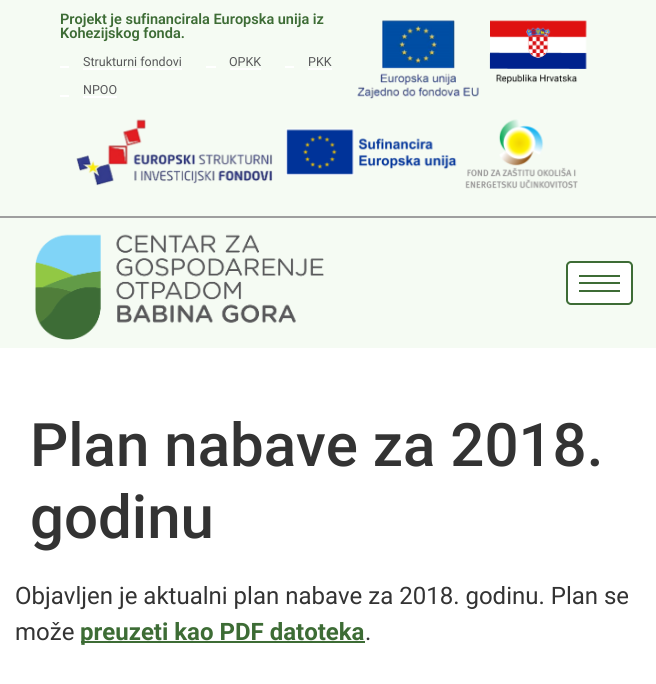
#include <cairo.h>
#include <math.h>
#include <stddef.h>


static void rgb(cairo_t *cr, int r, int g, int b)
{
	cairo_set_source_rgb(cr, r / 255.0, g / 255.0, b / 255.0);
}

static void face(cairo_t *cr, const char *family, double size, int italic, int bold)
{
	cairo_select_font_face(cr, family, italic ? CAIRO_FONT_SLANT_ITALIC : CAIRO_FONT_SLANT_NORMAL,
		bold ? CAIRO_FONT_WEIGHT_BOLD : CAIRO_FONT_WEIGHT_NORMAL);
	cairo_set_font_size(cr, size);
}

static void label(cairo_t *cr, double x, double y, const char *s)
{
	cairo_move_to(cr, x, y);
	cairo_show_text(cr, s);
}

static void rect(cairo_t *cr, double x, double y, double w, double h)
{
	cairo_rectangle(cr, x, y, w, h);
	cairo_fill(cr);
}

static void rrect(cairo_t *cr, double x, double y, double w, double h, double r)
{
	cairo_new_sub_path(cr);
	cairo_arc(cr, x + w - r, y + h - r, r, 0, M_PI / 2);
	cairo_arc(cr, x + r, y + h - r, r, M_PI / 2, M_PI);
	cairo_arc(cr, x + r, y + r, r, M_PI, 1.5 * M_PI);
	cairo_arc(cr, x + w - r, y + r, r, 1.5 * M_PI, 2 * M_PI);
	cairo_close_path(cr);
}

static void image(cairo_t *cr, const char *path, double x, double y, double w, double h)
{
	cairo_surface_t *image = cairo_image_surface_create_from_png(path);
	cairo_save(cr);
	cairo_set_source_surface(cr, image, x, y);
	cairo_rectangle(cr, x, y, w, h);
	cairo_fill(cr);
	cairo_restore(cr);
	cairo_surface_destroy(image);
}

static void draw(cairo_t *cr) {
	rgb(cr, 255, 255, 255);
	cairo_paint(cr);
	rgb(cr, 245, 251, 243);
	rect(cr, 0, 0, 656, 216);
	rgb(cr, 159, 159, 159);
	rect(cr, 0, 216, 656, 2);
	face(cr, "Roboto SemiBold", 14.5, 0, 0);
	rgb(cr, 61, 108, 53);
	label(cr, 60, 24, "Projekt je sufinancirala Europska unija iz");
	label(cr, 60, 38, "Kohezijskog fonda.");
	rgb(cr, 255, 255, 255);
	rect(cr, 60, 66, 9, 2);
	face(cr, "Roboto", 12.5, 0, 0);
	rgb(cr, 88, 88, 90);
	label(cr, 83, 66, "Strukturni fondovi");
	rgb(cr, 255, 255, 255);
	rect(cr, 83, 68, 99, 2);
	rect(cr, 206, 66, 10, 2);
	rgb(cr, 88, 88, 90);
	label(cr, 229, 66, "OPKK");
	rgb(cr, 255, 255, 255);
	rect(cr, 230, 68, 31, 2);
	rgb(cr, 88, 88, 90);
	label(cr, 308, 66, "PKK");
	rgb(cr, 255, 255, 255);
	rect(cr, 308, 68, 24, 2);
	rect(cr, 285, 66, 9, 2);
	rgb(cr, 88, 88, 90);
	label(cr, 83, 94, "NPOO");
	rgb(cr, 255, 255, 255);
	rect(cr, 83, 96, 34, 2);
	rect(cr, 60, 95, 9, 2);
	image(cr, "image0.png", 357, 20, 230, 79);
	image(cr, "image1.png", 76, 119, 502, 70);
	rgb(cr, 245, 251, 243);
	rect(cr, 0, 218, 656, 130);
	image(cr, "image2.png", 35, 234, 289, 106);
	rgb(cr, 255, 255, 255);
	rrect(cr, 567, 262, 65, 42, 4);
	cairo_fill_preserve(cr);
	rgb(cr, 61, 108, 53);
	cairo_stroke(cr);
	rect(cr, 579, 275, 41, 2);
	rect(cr, 579, 282, 41, 2);
	rect(cr, 579, 290, 41, 2);
	face(cr, "Roboto Medium", 60, 0, 0);
	rgb(cr, 51, 51, 51);
	label(cr, 30, 466, "Plan nabave za 2018.");
	label(cr, 30, 538, "godinu");
	face(cr, "Roboto", 24, 0, 0);
	label(cr, 15, 604, "Objavljen je aktualni plan nabave za 2018. godinu. Plan se");
	label(cr, 15, 640, "može");
	rgb(cr, 61, 108, 53);
	rect(cr, 81, 641, 284, 2);
	face(cr, "Roboto", 24, 0, 1);
	label(cr, 80, 640, "preuzeti kao PDF datoteka");
	face(cr, "Roboto", 24, 0, 0);
	rgb(cr, 51, 51, 51);
	label(cr, 365, 640, ".");
}

int main(void) {
	cairo_surface_t *surface = cairo_image_surface_create(CAIRO_FORMAT_RGB24, 656, 684);
	cairo_t *cr = cairo_create(surface);
	cairo_font_options_t *options = cairo_font_options_create();
	cairo_font_options_set_hint_metrics(options, CAIRO_HINT_METRICS_OFF);
	cairo_font_options_set_hint_style(options, CAIRO_HINT_STYLE_NONE);
	cairo_set_font_options(cr, options);
	cairo_set_miter_limit(cr, 4);
	draw(cr);
	cairo_surface_write_to_png(surface, "render.png");
	cairo_font_options_destroy(options);
	cairo_destroy(cr);
	cairo_surface_destroy(surface);
	return 0;
}
